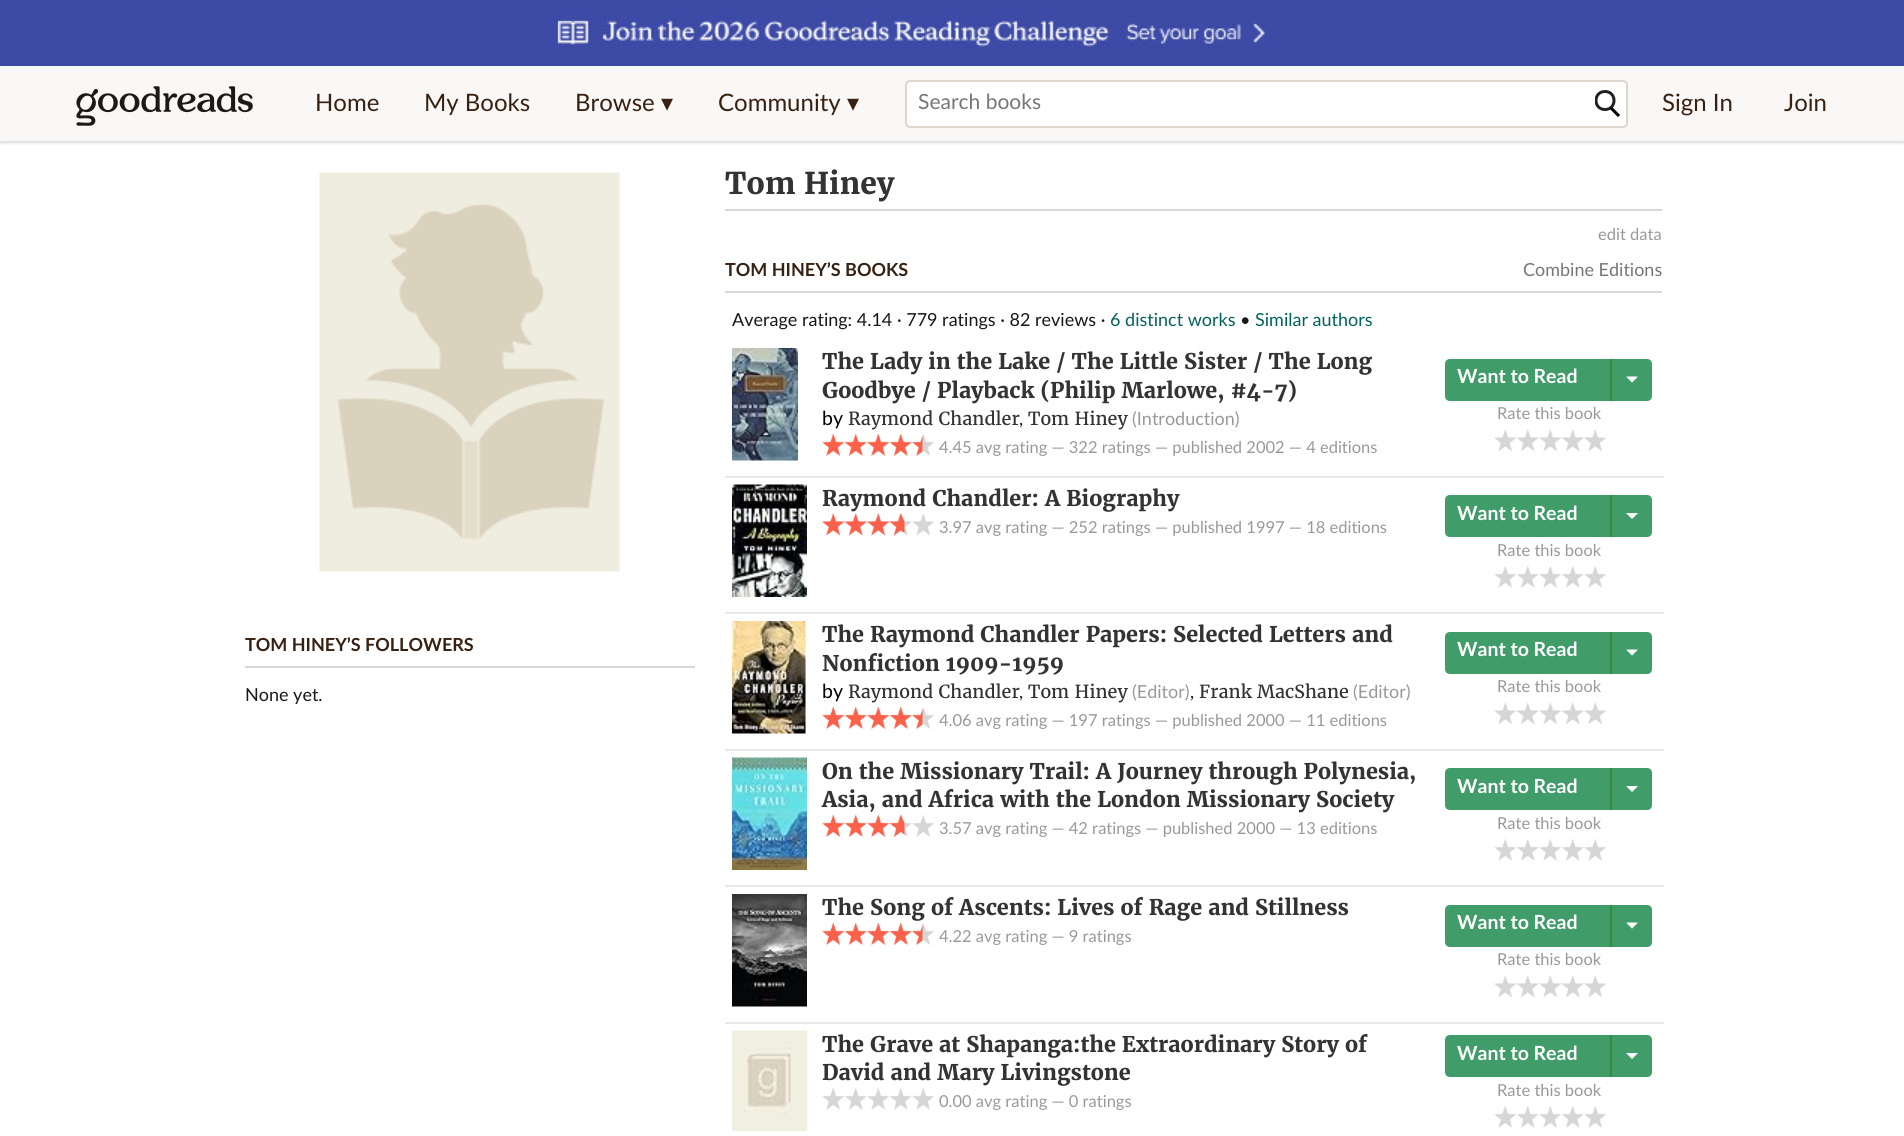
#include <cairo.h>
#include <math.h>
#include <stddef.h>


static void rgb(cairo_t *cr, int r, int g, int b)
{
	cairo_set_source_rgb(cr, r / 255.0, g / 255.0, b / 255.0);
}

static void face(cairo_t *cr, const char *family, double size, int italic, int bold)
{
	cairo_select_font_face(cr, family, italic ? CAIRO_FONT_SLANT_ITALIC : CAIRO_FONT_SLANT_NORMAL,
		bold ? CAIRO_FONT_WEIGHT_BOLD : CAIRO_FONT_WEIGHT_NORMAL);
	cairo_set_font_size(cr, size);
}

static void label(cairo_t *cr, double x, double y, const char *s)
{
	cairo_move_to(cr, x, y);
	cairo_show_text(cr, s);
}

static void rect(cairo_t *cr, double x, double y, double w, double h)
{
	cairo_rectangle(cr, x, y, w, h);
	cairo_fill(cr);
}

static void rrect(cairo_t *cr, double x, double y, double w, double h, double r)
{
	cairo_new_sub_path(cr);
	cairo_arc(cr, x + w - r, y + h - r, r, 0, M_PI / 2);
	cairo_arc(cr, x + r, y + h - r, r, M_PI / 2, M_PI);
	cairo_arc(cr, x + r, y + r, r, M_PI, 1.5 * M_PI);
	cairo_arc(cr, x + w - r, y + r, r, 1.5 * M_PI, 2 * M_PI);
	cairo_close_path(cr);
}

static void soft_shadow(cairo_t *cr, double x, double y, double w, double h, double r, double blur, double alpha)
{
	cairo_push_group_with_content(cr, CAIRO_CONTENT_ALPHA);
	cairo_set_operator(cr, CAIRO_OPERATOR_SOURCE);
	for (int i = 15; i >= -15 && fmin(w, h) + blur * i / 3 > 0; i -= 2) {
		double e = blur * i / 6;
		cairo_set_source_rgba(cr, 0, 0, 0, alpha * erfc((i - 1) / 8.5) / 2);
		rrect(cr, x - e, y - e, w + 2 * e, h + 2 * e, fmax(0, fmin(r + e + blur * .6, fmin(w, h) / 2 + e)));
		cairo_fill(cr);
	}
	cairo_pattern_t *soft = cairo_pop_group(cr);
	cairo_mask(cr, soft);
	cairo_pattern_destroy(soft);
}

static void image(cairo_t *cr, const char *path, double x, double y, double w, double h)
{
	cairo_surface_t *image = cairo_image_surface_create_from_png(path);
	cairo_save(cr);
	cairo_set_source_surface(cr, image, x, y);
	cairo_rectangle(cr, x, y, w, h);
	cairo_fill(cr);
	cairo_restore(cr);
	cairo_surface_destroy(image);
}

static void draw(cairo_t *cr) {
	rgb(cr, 255, 255, 255);
	cairo_paint(cr);
	rgb(cr, 61, 74, 166);
	rect(cr, 0, 0, 1904, 66);
	image(cr, "image0.png", 556, 12, 709, 36);
	rgb(cr, 0, 0, 0);
	soft_shadow(cr, 0, 68, 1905, 75, 0, 1.5, 0.15);
	rgb(cr, 250, 248, 246);
	rect(cr, 0, 66, 1904, 75);
	image(cr, "image1.png", 76, 86, 177, 40);
	face(cr, "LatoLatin", 24, 0, 0);
	rgb(cr, 56, 33, 16);
	label(cr, 315, 111, "Home");
	label(cr, 424, 111, "My Books");
	label(cr, 575, 111, "Browse");
	face(cr, "DejaVu Sans", 24, 0, 0);
	label(cr, 661, 111, "▾");
	face(cr, "LatoLatin", 24, 0, 0);
	label(cr, 718, 111, "Community");
	face(cr, "DejaVu Sans", 24, 0, 0);
	label(cr, 847, 111, "▾");
	rgb(cr, 255, 255, 255);
	rrect(cr, 906, 81, 721, 46, 4);
	cairo_fill_preserve(cr);
	rgb(cr, 220, 214, 204);
	cairo_stroke(cr);
	face(cr, "LatoLatin", 21, 0, 0);
	rgb(cr, 118, 118, 118);
	label(cr, 918, 109, "Search books");
	cairo_save(cr);
	cairo_rectangle(cr, 1595, 90, 27, 29);
	cairo_clip(cr);
	cairo_new_path(cr);
	cairo_move_to(cr, 1605, 109.5);
	cairo_curve_to(cr, 1617, 109.5, 1617, 91.5, 1605, 91.5);
	cairo_curve_to(cr, 1593, 91.5, 1593, 109.5, 1605, 109.5);
	cairo_close_path(cr);
	rgb(cr, 32, 32, 32);
	cairo_set_line_width(cr, 3);
	cairo_stroke(cr);
	cairo_restore(cr);
	cairo_new_path(cr);
	cairo_move_to(cr, 1612, 109);
	cairo_line_to(cr, 1618, 115);
	rgb(cr, 0, 0, 0);
	cairo_set_line_width(cr, 3);
	cairo_set_line_cap(cr, CAIRO_LINE_CAP_SQUARE);
	cairo_stroke(cr);
	face(cr, "LatoLatin", 24, 0, 0);
	rgb(cr, 56, 33, 16);
	label(cr, 1662, 111, "Sign In");
	label(cr, 1784, 111, "Join");
	image(cr, "image2.png", 319, 172, 301, 400);
	rgb(cr, 216, 216, 216);
	rect(cr, 245, 666, 450, 2);
	face(cr, "LatoLatin", 18, 0, 1);
	rgb(cr, 56, 33, 16);
	label(cr, 245, 651, "TOM HINEY’S FOLLOWERS");
	face(cr, "LatoLatin", 18, 0, 0);
	rgb(cr, 24, 24, 24);
	label(cr, 245, 701, "None yet.");
	rgb(cr, 216, 216, 216);
	rect(cr, 725, 209, 937, 2);
	face(cr, "Merriweather", 30, 0, 1);
	rgb(cr, 51, 51, 51);
	label(cr, 725, 194, "Tom Hiney");
	face(cr, "LatoLatin", 16.5, 0, 0);
	rgb(cr, 153, 153, 153);
	label(cr, 1598, 240, "edit data");
	rgb(cr, 216, 216, 216);
	rect(cr, 725, 291, 937, 2);
	face(cr, "LatoLatin", 18, 0, 1);
	rgb(cr, 56, 33, 16);
	label(cr, 725, 276, "TOM HINEY’S BOOKS");
	face(cr, "LatoLatin", 18, 0, 0);
	rgb(cr, 118, 118, 118);
	label(cr, 1523, 276, "Combine Editions");
	rgb(cr, 24, 24, 24);
	label(cr, 732, 326, "Average rating: 4.14 · 779 ratings · 82 reviews ·");
	rgb(cr, 0, 99, 93);
	label(cr, 1110, 326, "6 distinct works");
	rgb(cr, 24, 24, 24);
	label(cr, 1240, 326, "•");
	rgb(cr, 0, 99, 93);
	label(cr, 1255, 326, "Similar authors");
	image(cr, "image3.png", 732, 348, 66, 113);
	face(cr, "Merriweather", 21.6, 0, 1);
	rgb(cr, 51, 51, 51);
	label(cr, 822, 369, "The Lady in the Lake / The Little Sister / The Long");
	label(cr, 822, 398, "Goodbye / Playback (Philip Marlowe, #4-7)");
	face(cr, "LatoLatin", 19.5, 0, 0);
	rgb(cr, 0, 0, 0);
	label(cr, 822, 425, "by");
	face(cr, "Merriweather", 18, 0, 0);
	rgb(cr, 51, 51, 51);
	label(cr, 848, 425, "Raymond Chandler");
	face(cr, "LatoLatin", 18, 0, 0);
	rgb(cr, 24, 24, 24);
	label(cr, 1019, 425, ",");
	face(cr, "Merriweather", 18, 0, 0);
	rgb(cr, 51, 51, 51);
	label(cr, 1028, 425, "Tom Hiney");
	face(cr, "LatoLatin", 18, 0, 0);
	rgb(cr, 153, 153, 153);
	label(cr, 1132, 425, "(Introduction)");
	image(cr, "image4.png", 822, 433, 23, 23);
	image(cr, "image5.png", 844, 433, 23, 23);
	image(cr, "image4.png", 867, 433, 23, 23);
	image(cr, "image5.png", 889, 433, 23, 23);
	image(cr, "image6.png", 912, 434, 22, 22);
	face(cr, "LatoLatin", 16.5, 0, 0);
	label(cr, 939, 453, "4.45 avg rating — 322 ratings — published 2002 — 4 editions");
	rgb(cr, 232, 232, 232);
	rect(cr, 725, 476, 939, 2);
	rgb(cr, 64, 157, 105);
	cairo_new_path(cr);
	cairo_move_to(cr, 1450, 359);
	cairo_line_to(cr, 1610, 359);
	cairo_line_to(cr, 1610, 401);
	cairo_line_to(cr, 1450, 401);
	cairo_curve_to(cr, 1447, 401, 1445, 399, 1445, 396);
	cairo_line_to(cr, 1445, 364);
	cairo_curve_to(cr, 1445, 361, 1447, 359, 1450, 359);
	cairo_close_path(cr);
	cairo_fill(cr);
	face(cr, "LatoLatin", 19.5, 0, 1);
	rgb(cr, 255, 255, 255);
	label(cr, 1457, 383, "Want to Read");
	rgb(cr, 64, 157, 105);
	cairo_new_path(cr);
	cairo_move_to(cr, 1610, 359);
	cairo_line_to(cr, 1647, 359);
	cairo_curve_to(cr, 1650, 359, 1652, 361, 1652, 364);
	cairo_line_to(cr, 1652, 396);
	cairo_curve_to(cr, 1652, 399, 1650, 401, 1647, 401);
	cairo_line_to(cr, 1610, 401);
	cairo_close_path(cr);
	cairo_fill(cr);
	rgb(cr, 56, 136, 61);
	rect(cr, 1610, 359, 2, 42);
	image(cr, "image7.png", 1626, 376, 12, 7);
	face(cr, "LatoLatin", 16.5, 0, 0);
	rgb(cr, 153, 153, 153);
	label(cr, 1497, 419, "Rate this book");
	image(cr, "image8.png", 1494, 429, 23, 22);
	image(cr, "image9.png", 1516, 429, 23, 23);
	image(cr, "image10.png", 1539, 429, 23, 22);
	image(cr, "image11.png", 1561, 429, 23, 23);
	image(cr, "image12.png", 1584, 429, 22, 22);
	image(cr, "image13.png", 732, 484, 75, 113);
	face(cr, "Merriweather", 21.6, 0, 1);
	rgb(cr, 51, 51, 51);
	label(cr, 822, 506, "Raymond Chandler: A Biography");
	image(cr, "image14.png", 822, 513, 23, 23);
	image(cr, "image15.png", 844, 513, 23, 23);
	image(cr, "image14.png", 867, 513, 23, 23);
	image(cr, "image16.png", 889, 513, 23, 23);
	image(cr, "image17.png", 912, 513, 23, 23);
	face(cr, "LatoLatin", 16.5, 0, 0);
	rgb(cr, 153, 153, 153);
	label(cr, 939, 533, "3.97 avg rating — 252 ratings — published 1997 — 18 editions");
	rgb(cr, 232, 232, 232);
	rect(cr, 725, 612, 939, 2);
	rgb(cr, 64, 157, 105);
	cairo_new_path(cr);
	cairo_move_to(cr, 1450, 495);
	cairo_line_to(cr, 1610, 495);
	cairo_line_to(cr, 1610, 537);
	cairo_line_to(cr, 1450, 537);
	cairo_curve_to(cr, 1447, 537, 1445, 535, 1445, 532);
	cairo_line_to(cr, 1445, 500);
	cairo_curve_to(cr, 1445, 497, 1447, 495, 1450, 495);
	cairo_close_path(cr);
	cairo_fill(cr);
	face(cr, "LatoLatin", 19.5, 0, 1);
	rgb(cr, 255, 255, 255);
	label(cr, 1457, 520, "Want to Read");
	rgb(cr, 64, 157, 105);
	cairo_new_path(cr);
	cairo_move_to(cr, 1610, 495);
	cairo_line_to(cr, 1647, 495);
	cairo_curve_to(cr, 1650, 495, 1652, 497, 1652, 500);
	cairo_line_to(cr, 1652, 532);
	cairo_curve_to(cr, 1652, 535, 1650, 537, 1647, 537);
	cairo_line_to(cr, 1610, 537);
	cairo_close_path(cr);
	cairo_fill(cr);
	rgb(cr, 56, 136, 61);
	rect(cr, 1610, 495, 2, 42);
	image(cr, "image18.png", 1626, 513, 12, 6);
	face(cr, "LatoLatin", 16.5, 0, 0);
	rgb(cr, 153, 153, 153);
	label(cr, 1497, 556, "Rate this book");
	image(cr, "image19.png", 1494, 566, 22, 22);
	image(cr, "image20.png", 1517, 566, 22, 22);
	image(cr, "image21.png", 1539, 566, 22, 22);
	image(cr, "image22.png", 1562, 566, 22, 22);
	image(cr, "image21.png", 1584, 566, 22, 22);
	image(cr, "image23.png", 732, 621, 74, 113);
	face(cr, "Merriweather", 21.6, 0, 1);
	rgb(cr, 51, 51, 51);
	label(cr, 822, 642, "The Raymond Chandler Papers: Selected Letters and");
	label(cr, 822, 671, "Nonfiction 1909-1959");
	face(cr, "LatoLatin", 19.5, 0, 0);
	rgb(cr, 0, 0, 0);
	label(cr, 822, 698, "by");
	face(cr, "Merriweather", 18, 0, 0);
	rgb(cr, 51, 51, 51);
	label(cr, 848, 698, "Raymond Chandler");
	face(cr, "LatoLatin", 18, 0, 0);
	rgb(cr, 24, 24, 24);
	label(cr, 1019, 698, ",");
	face(cr, "Merriweather", 18, 0, 0);
	rgb(cr, 51, 51, 51);
	label(cr, 1028, 698, "Tom Hiney");
	face(cr, "LatoLatin", 18, 0, 0);
	rgb(cr, 153, 153, 153);
	label(cr, 1132, 698, "(Editor)");
	rgb(cr, 24, 24, 24);
	label(cr, 1190, 698, ",");
	face(cr, "Merriweather", 18, 0, 0);
	rgb(cr, 51, 51, 51);
	label(cr, 1199, 698, "Frank MacShane");
	face(cr, "LatoLatin", 18, 0, 0);
	rgb(cr, 153, 153, 153);
	label(cr, 1353, 698, "(Editor)");
	image(cr, "image4.png", 822, 706, 23, 23);
	image(cr, "image5.png", 844, 706, 23, 23);
	image(cr, "image4.png", 867, 706, 23, 23);
	image(cr, "image5.png", 889, 706, 23, 23);
	image(cr, "image6.png", 912, 707, 22, 22);
	face(cr, "LatoLatin", 16.5, 0, 0);
	label(cr, 939, 726, "4.06 avg rating — 197 ratings — published 2000 — 11 editions");
	rgb(cr, 232, 232, 232);
	rect(cr, 725, 749, 939, 2);
	rgb(cr, 64, 157, 105);
	cairo_new_path(cr);
	cairo_move_to(cr, 1450, 632);
	cairo_line_to(cr, 1610, 632);
	cairo_line_to(cr, 1610, 674);
	cairo_line_to(cr, 1450, 674);
	cairo_curve_to(cr, 1447, 674, 1445, 672, 1445, 669);
	cairo_line_to(cr, 1445, 637);
	cairo_curve_to(cr, 1445, 634, 1447, 632, 1450, 632);
	cairo_close_path(cr);
	cairo_fill(cr);
	face(cr, "LatoLatin", 19.5, 0, 1);
	rgb(cr, 255, 255, 255);
	label(cr, 1457, 656, "Want to Read");
	rgb(cr, 64, 157, 105);
	cairo_new_path(cr);
	cairo_move_to(cr, 1610, 632);
	cairo_line_to(cr, 1647, 632);
	cairo_curve_to(cr, 1650, 632, 1652, 634, 1652, 637);
	cairo_line_to(cr, 1652, 669);
	cairo_curve_to(cr, 1652, 672, 1650, 674, 1647, 674);
	cairo_line_to(cr, 1610, 674);
	cairo_close_path(cr);
	cairo_fill(cr);
	rgb(cr, 56, 136, 61);
	rect(cr, 1610, 632, 2, 42);
	image(cr, "image7.png", 1626, 649, 12, 7);
	face(cr, "LatoLatin", 16.5, 0, 0);
	rgb(cr, 153, 153, 153);
	label(cr, 1497, 692, "Rate this book");
	image(cr, "image8.png", 1494, 702, 23, 22);
	image(cr, "image9.png", 1516, 702, 23, 23);
	image(cr, "image10.png", 1539, 702, 23, 22);
	image(cr, "image11.png", 1561, 702, 23, 23);
	image(cr, "image12.png", 1584, 702, 22, 22);
	image(cr, "image24.png", 732, 757, 75, 113);
	face(cr, "Merriweather", 21.6, 0, 1);
	rgb(cr, 51, 51, 51);
	label(cr, 822, 779, "On the Missionary Trail: A Journey through Polynesia,");
	label(cr, 822, 807, "Asia, and Africa with the London Missionary Society");
	image(cr, "image4.png", 822, 814, 23, 23);
	image(cr, "image5.png", 844, 814, 23, 23);
	image(cr, "image4.png", 867, 814, 23, 23);
	image(cr, "image25.png", 889, 814, 23, 23);
	image(cr, "image21.png", 912, 815, 22, 22);
	face(cr, "LatoLatin", 16.5, 0, 0);
	rgb(cr, 153, 153, 153);
	label(cr, 939, 834, "3.57 avg rating — 42 ratings — published 2000 — 13 editions");
	rgb(cr, 232, 232, 232);
	rect(cr, 725, 885, 939, 2);
	rgb(cr, 64, 157, 105);
	cairo_new_path(cr);
	cairo_move_to(cr, 1450, 768);
	cairo_line_to(cr, 1610, 768);
	cairo_line_to(cr, 1610, 810);
	cairo_line_to(cr, 1450, 810);
	cairo_curve_to(cr, 1447, 810, 1445, 808, 1445, 805);
	cairo_line_to(cr, 1445, 773);
	cairo_curve_to(cr, 1445, 770, 1447, 768, 1450, 768);
	cairo_close_path(cr);
	cairo_fill(cr);
	face(cr, "LatoLatin", 19.5, 0, 1);
	rgb(cr, 255, 255, 255);
	label(cr, 1457, 793, "Want to Read");
	rgb(cr, 64, 157, 105);
	cairo_new_path(cr);
	cairo_move_to(cr, 1610, 768);
	cairo_line_to(cr, 1647, 768);
	cairo_curve_to(cr, 1650, 768, 1652, 770, 1652, 773);
	cairo_line_to(cr, 1652, 805);
	cairo_curve_to(cr, 1652, 808, 1650, 810, 1647, 810);
	cairo_line_to(cr, 1610, 810);
	cairo_close_path(cr);
	cairo_fill(cr);
	rgb(cr, 56, 136, 61);
	rect(cr, 1610, 768, 2, 42);
	image(cr, "image18.png", 1626, 786, 12, 6);
	face(cr, "LatoLatin", 16.5, 0, 0);
	rgb(cr, 153, 153, 153);
	label(cr, 1497, 829, "Rate this book");
	image(cr, "image19.png", 1494, 839, 22, 22);
	image(cr, "image20.png", 1517, 839, 22, 22);
	image(cr, "image21.png", 1539, 839, 22, 22);
	image(cr, "image22.png", 1562, 839, 22, 22);
	image(cr, "image21.png", 1584, 839, 22, 22);
	image(cr, "image26.png", 732, 894, 75, 113);
	face(cr, "Merriweather", 21.6, 0, 1);
	rgb(cr, 51, 51, 51);
	label(cr, 822, 915, "The Song of Ascents: Lives of Rage and Stillness");
	image(cr, "image4.png", 822, 922, 23, 23);
	image(cr, "image5.png", 844, 922, 23, 23);
	image(cr, "image4.png", 867, 922, 23, 23);
	image(cr, "image5.png", 889, 922, 23, 23);
	image(cr, "image6.png", 912, 923, 22, 22);
	face(cr, "LatoLatin", 16.5, 0, 0);
	rgb(cr, 153, 153, 153);
	label(cr, 939, 942, "4.22 avg rating — 9 ratings");
	rgb(cr, 232, 232, 232);
	rect(cr, 725, 1022, 939, 2);
	rgb(cr, 64, 157, 105);
	cairo_new_path(cr);
	cairo_move_to(cr, 1450, 905);
	cairo_line_to(cr, 1610, 905);
	cairo_line_to(cr, 1610, 947);
	cairo_line_to(cr, 1450, 947);
	cairo_curve_to(cr, 1447, 947, 1445, 945, 1445, 942);
	cairo_line_to(cr, 1445, 910);
	cairo_curve_to(cr, 1445, 907, 1447, 905, 1450, 905);
	cairo_close_path(cr);
	cairo_fill(cr);
	face(cr, "LatoLatin", 19.5, 0, 1);
	rgb(cr, 255, 255, 255);
	label(cr, 1457, 929, "Want to Read");
	rgb(cr, 64, 157, 105);
	cairo_new_path(cr);
	cairo_move_to(cr, 1610, 905);
	cairo_line_to(cr, 1647, 905);
	cairo_curve_to(cr, 1650, 905, 1652, 907, 1652, 910);
	cairo_line_to(cr, 1652, 942);
	cairo_curve_to(cr, 1652, 945, 1650, 947, 1647, 947);
	cairo_line_to(cr, 1610, 947);
	cairo_close_path(cr);
	cairo_fill(cr);
	rgb(cr, 56, 136, 61);
	rect(cr, 1610, 905, 2, 42);
	image(cr, "image7.png", 1626, 922, 12, 7);
	face(cr, "LatoLatin", 16.5, 0, 0);
	rgb(cr, 153, 153, 153);
	label(cr, 1497, 965, "Rate this book");
	image(cr, "image8.png", 1494, 975, 23, 22);
	image(cr, "image9.png", 1516, 975, 23, 23);
	image(cr, "image10.png", 1539, 975, 23, 22);
	image(cr, "image11.png", 1561, 975, 23, 23);
	image(cr, "image12.png", 1584, 975, 22, 22);
	image(cr, "image27.png", 732, 1030, 75, 101);
	face(cr, "Merriweather", 21.6, 0, 1);
	rgb(cr, 51, 51, 51);
	label(cr, 822, 1052, "The Grave at Shapanga:the Extraordinary Story of");
	label(cr, 822, 1080, "David and Mary Livingstone");
	image(cr, "image21.png", 822, 1088, 22, 22);
	image(cr, "image22.png", 845, 1088, 22, 22);
	image(cr, "image21.png", 867, 1088, 22, 22);
	image(cr, "image22.png", 890, 1088, 22, 22);
	image(cr, "image21.png", 912, 1088, 22, 22);
	face(cr, "LatoLatin", 16.5, 0, 0);
	rgb(cr, 153, 153, 153);
	label(cr, 939, 1107, "0.00 avg rating — 0 ratings");
	rgb(cr, 64, 157, 105);
	cairo_new_path(cr);
	cairo_move_to(cr, 1450, 1035);
	cairo_line_to(cr, 1610, 1035);
	cairo_line_to(cr, 1610, 1077);
	cairo_line_to(cr, 1450, 1077);
	cairo_curve_to(cr, 1447, 1077, 1445, 1075, 1445, 1072);
	cairo_line_to(cr, 1445, 1040);
	cairo_curve_to(cr, 1445, 1037, 1447, 1035, 1450, 1035);
	cairo_close_path(cr);
	cairo_fill(cr);
	face(cr, "LatoLatin", 19.5, 0, 1);
	rgb(cr, 255, 255, 255);
	label(cr, 1457, 1060, "Want to Read");
	rgb(cr, 64, 157, 105);
	cairo_new_path(cr);
	cairo_move_to(cr, 1610, 1035);
	cairo_line_to(cr, 1647, 1035);
	cairo_curve_to(cr, 1650, 1035, 1652, 1037, 1652, 1040);
	cairo_line_to(cr, 1652, 1072);
	cairo_curve_to(cr, 1652, 1075, 1650, 1077, 1647, 1077);
	cairo_line_to(cr, 1610, 1077);
	cairo_close_path(cr);
	cairo_fill(cr);
	rgb(cr, 56, 136, 61);
	rect(cr, 1610, 1035, 2, 42);
	image(cr, "image18.png", 1626, 1053, 12, 6);
	face(cr, "LatoLatin", 16.5, 0, 0);
	rgb(cr, 153, 153, 153);
	label(cr, 1497, 1096, "Rate this book");
	image(cr, "image19.png", 1494, 1106, 22, 22);
	image(cr, "image20.png", 1517, 1106, 22, 22);
	image(cr, "image21.png", 1539, 1106, 22, 22);
	image(cr, "image22.png", 1562, 1106, 22, 22);
	image(cr, "image21.png", 1584, 1106, 22, 22);
}

int main(void) {
	cairo_surface_t *surface = cairo_image_surface_create(CAIRO_FORMAT_RGB24, 1904, 1136);
	cairo_t *cr = cairo_create(surface);
	cairo_font_options_t *options = cairo_font_options_create();
	cairo_font_options_set_hint_metrics(options, CAIRO_HINT_METRICS_OFF);
	cairo_font_options_set_hint_style(options, CAIRO_HINT_STYLE_NONE);
	cairo_set_font_options(cr, options);
	cairo_set_miter_limit(cr, 4);
	draw(cr);
	cairo_surface_write_to_png(surface, "render.png");
	cairo_font_options_destroy(options);
	cairo_destroy(cr);
	cairo_surface_destroy(surface);
	return 0;
}
